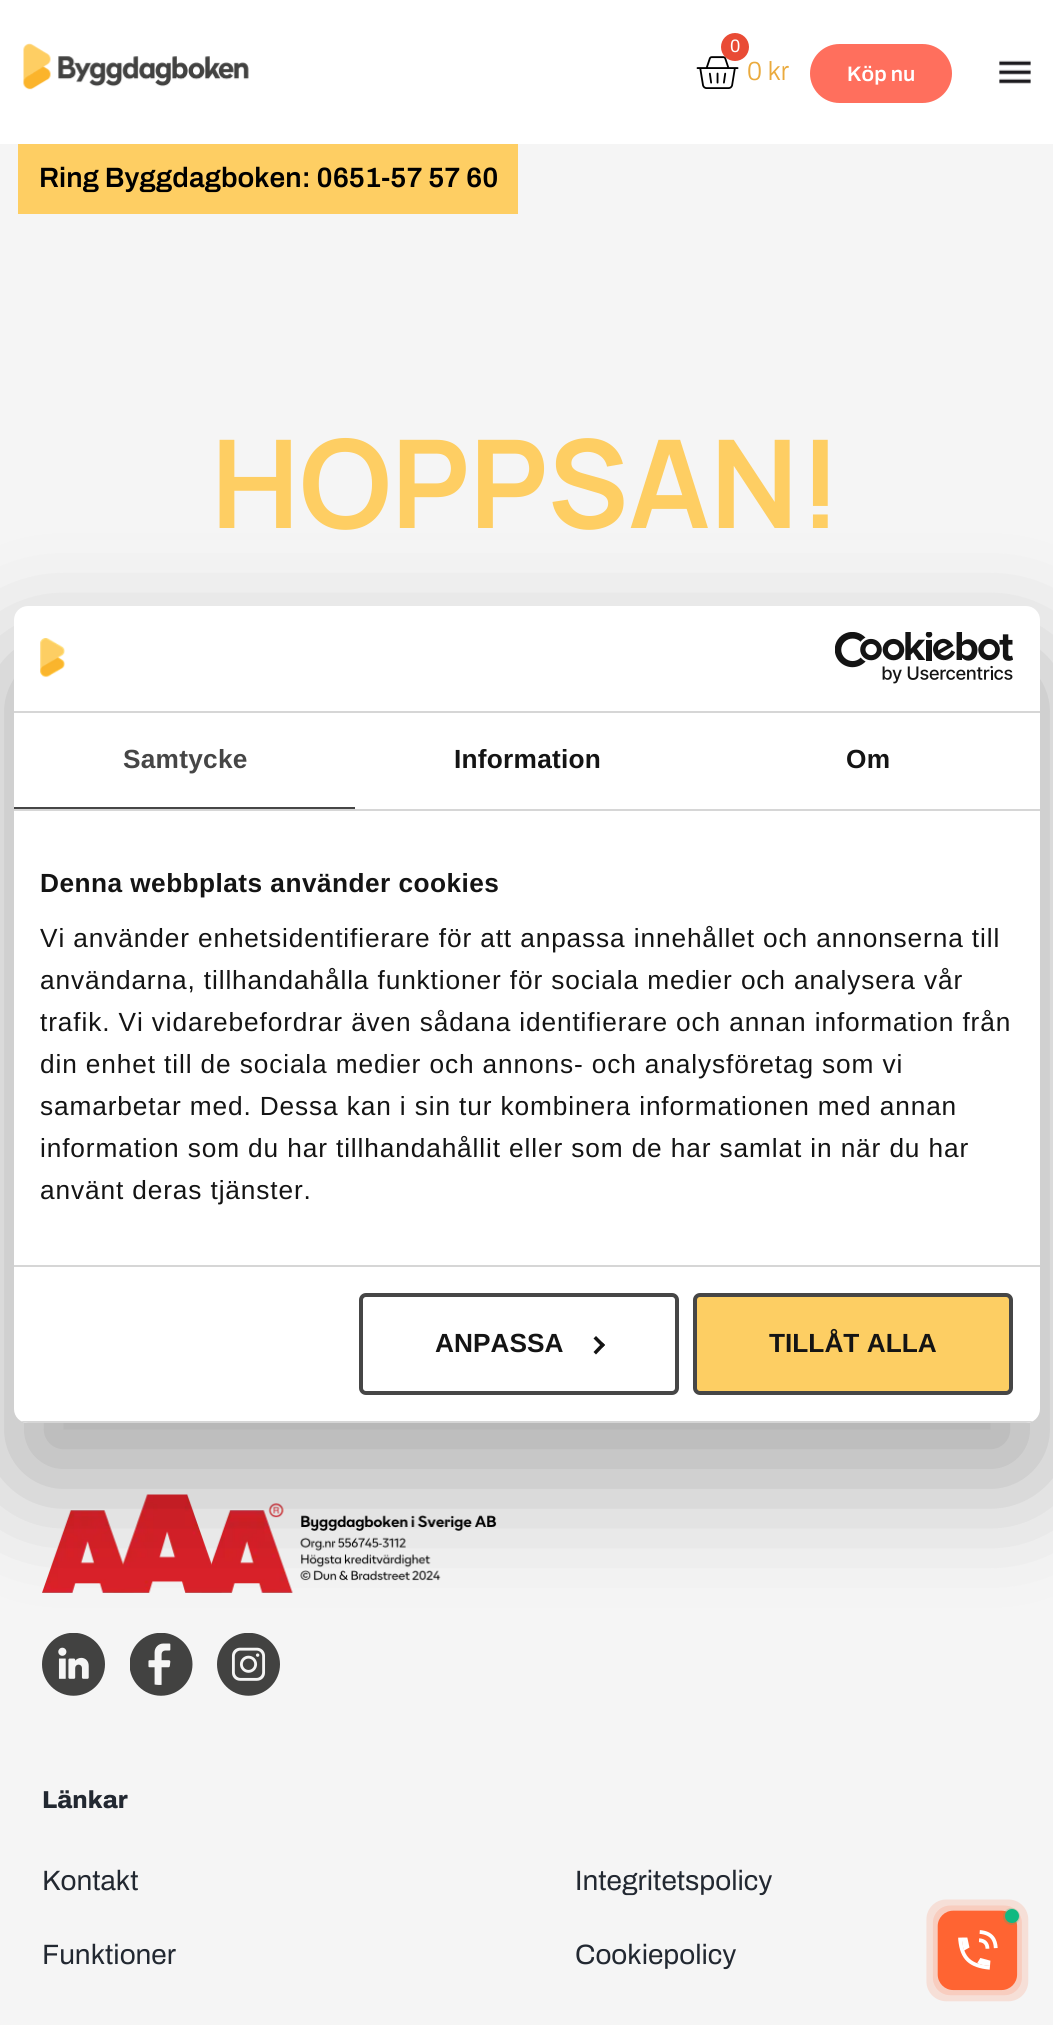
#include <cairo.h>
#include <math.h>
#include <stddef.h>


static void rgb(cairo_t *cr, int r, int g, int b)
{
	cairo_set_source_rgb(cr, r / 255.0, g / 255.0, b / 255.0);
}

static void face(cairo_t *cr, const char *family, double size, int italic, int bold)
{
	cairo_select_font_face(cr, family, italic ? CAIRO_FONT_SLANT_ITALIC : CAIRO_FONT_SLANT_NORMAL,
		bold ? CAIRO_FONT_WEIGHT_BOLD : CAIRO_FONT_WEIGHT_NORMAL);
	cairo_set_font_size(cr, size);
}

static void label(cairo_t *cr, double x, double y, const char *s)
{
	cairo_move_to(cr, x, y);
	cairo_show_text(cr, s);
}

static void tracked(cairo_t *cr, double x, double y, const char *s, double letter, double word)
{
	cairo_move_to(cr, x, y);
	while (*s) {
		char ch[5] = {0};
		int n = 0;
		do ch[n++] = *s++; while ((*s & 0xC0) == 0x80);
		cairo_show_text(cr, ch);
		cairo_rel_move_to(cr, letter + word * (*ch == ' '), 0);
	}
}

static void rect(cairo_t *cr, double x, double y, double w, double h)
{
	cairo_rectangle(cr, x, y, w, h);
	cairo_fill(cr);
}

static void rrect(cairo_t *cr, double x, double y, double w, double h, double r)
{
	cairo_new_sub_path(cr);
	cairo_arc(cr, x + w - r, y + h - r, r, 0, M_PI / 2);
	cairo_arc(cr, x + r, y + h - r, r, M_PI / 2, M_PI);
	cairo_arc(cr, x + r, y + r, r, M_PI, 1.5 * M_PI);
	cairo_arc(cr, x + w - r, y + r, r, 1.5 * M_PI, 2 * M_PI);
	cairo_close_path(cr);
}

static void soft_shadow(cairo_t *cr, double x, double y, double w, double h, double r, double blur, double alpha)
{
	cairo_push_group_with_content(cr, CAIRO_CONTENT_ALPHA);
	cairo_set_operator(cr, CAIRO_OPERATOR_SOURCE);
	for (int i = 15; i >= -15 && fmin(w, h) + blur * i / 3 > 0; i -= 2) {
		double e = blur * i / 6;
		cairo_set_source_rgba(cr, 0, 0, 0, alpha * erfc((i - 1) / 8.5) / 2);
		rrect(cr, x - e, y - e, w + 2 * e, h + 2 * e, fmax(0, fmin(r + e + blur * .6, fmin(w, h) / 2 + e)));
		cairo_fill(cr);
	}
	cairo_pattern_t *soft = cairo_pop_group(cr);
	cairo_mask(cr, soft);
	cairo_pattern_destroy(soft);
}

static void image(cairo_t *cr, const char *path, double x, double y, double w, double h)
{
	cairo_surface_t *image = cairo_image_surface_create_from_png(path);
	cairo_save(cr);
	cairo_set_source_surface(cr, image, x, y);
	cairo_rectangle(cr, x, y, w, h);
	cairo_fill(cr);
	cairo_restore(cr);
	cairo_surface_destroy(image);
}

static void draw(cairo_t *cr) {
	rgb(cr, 255, 255, 255);
	cairo_paint(cr);
	image(cr, "image0.png", 23, 43, 226, 47);
	image(cr, "image1.png", 696, 56, 43, 33);
	rgb(cr, 233, 75, 53);
	cairo_arc(cr, 735, 47, 14, 0, 2 * M_PI);
	cairo_fill(cr);
	face(cr, "Archivo", 18, 0, 0);
	rgb(cr, 255, 255, 255);
	label(cr, 730, 52, "0");
	face(cr, "Archivo Light", 26.25, 0, 0);
	rgb(cr, 234, 170, 61);
	label(cr, 747, 80, "0 kr");
	rgb(cr, 255, 111, 93);
	rrect(cr, 811, 45, 140, 57, 28.5);
	cairo_fill_preserve(cr);
	cairo_stroke(cr);
	face(cr, "Archivo SemiBold", 21, 0, 0);
	rgb(cr, 255, 255, 255);
	label(cr, 847, 81, "Köp nu");
	image(cr, "image2.png", 999, 60, 32, 24);
	rgb(cr, 245, 245, 245);
	rect(cr, 0, 144, 1053, 1881);
	rgb(cr, 254, 206, 99);
	rect(cr, 18, 144, 500, 70);
	face(cr, "Archivo SemiBold", 28, 0, 0);
	rgb(cr, 0, 0, 0);
	label(cr, 39, 187, "Ring Byggdagboken: 0651-57 57 60");
	face(cr, "Manrope", 122.5, 0, 1);
	rgb(cr, 254, 206, 99);
	label(cr, 211, 528, "HOPPSAN!");
	image(cr, "image5.png", 42, 1494, 455, 99);
	image(cr, "image6.png", 42, 1633, 63, 63);
	image(cr, "image7.png", 130, 1633, 63, 63);
	image(cr, "image8.png", 217, 1633, 63, 63);
	rgb(cr, 0, 0, 0);
	soft_shadow(cr, 14, 662, 1026, 817, 14, 59.5, 0.3);
	rgb(cr, 255, 255, 255);
	rrect(cr, 14, 606, 1026, 817, 14);
	cairo_fill(cr);
	rgb(cr, 214, 214, 214);
	rect(cr, 14, 711, 1026, 2);
	image(cr, "image3.png", 40, 638, 25, 40);
	image(cr, "image4.png", 835, 632, 178, 52);
	rect(cr, 14, 809, 1026, 2);
	rgb(cr, 70, 70, 70);
	rect(cr, 14, 807, 341, 2);
	face(cr, "Liberation Sans", 26.25, 0, 1);
	tracked(cr, 123, 768, "Samtycke", 0.25, 0);
	rgb(cr, 20, 20, 20);
	tracked(cr, 454, 768, "Information", 0.25, 0);
	tracked(cr, 846, 768, "Om", 0.25, 0);
	rgb(cr, 214, 214, 214);
	rect(cr, 14, 1265, 1026, 2);
	rgb(cr, 20, 20, 20);
	tracked(cr, 40, 892, "Denna webbplats använder cookies", 0.45, 0);
	face(cr, "Liberation Sans", 26.25, 0, 0);
	tracked(cr, 40, 947, "Vi använder enhetsidentifierare för att anpassa innehållet och annonserna till", 0.88, 0);
	tracked(cr, 40, 989, "användarna, tillhandahålla funktioner för sociala medier och analysera vår", 0.88, 0);
	tracked(cr, 40, 1031, "trafik. Vi vidarebefordrar även sådana identifierare och annan information från", 0.88, 0);
	tracked(cr, 40, 1073, "din enhet till de sociala medier och annons- och analysföretag som vi", 0.88, 0);
	tracked(cr, 40, 1115, "samarbetar med. Dessa kan i sin tur kombinera informationen med annan", 0.88, 0);
	tracked(cr, 40, 1157, "information som du har tillhandahållit eller som de har samlat in när du har", 0.88, 0);
	tracked(cr, 40, 1199, "använt deras tjänster.", 0.88, 0);
	cairo_save(cr);
	rrect(cr, 14, 606, 1026, 817, 14);
	cairo_clip(cr);
	rgb(cr, 214, 214, 214);
	rect(cr, 14, 1421, 1026, 2);
	cairo_restore(cr);
	rrect(cr, 361, 1295, 316, 98, 5);
	rgb(cr, 70, 70, 70);
	cairo_set_line_width(cr, 4);
	cairo_stroke(cr);
	face(cr, "Liberation Sans", 26.25, 0, 1);
	rgb(cr, 20, 20, 20);
	label(cr, 435, 1352, "ANPASSA");
	cairo_new_path(cr);
	cairo_move_to(cr, 596, 1336);
	cairo_line_to(cr, 605, 1345);
	cairo_line_to(cr, 602.5, 1347.5);
	cairo_line_to(cr, 593.5, 1338.5);
	cairo_close_path(cr);
	cairo_fill(cr);
	cairo_new_path(cr);
	cairo_move_to(cr, 602.5, 1342.5);
	cairo_line_to(cr, 605, 1345);
	cairo_line_to(cr, 596, 1354.5);
	cairo_line_to(cr, 593.5, 1352);
	cairo_close_path(cr);
	cairo_fill(cr);
	rgb(cr, 253, 206, 99);
	rrect(cr, 695, 1295, 316, 98, 5);
	cairo_fill_preserve(cr);
	rgb(cr, 70, 70, 70);
	cairo_stroke(cr);
	rgb(cr, 20, 20, 20);
	label(cr, 769, 1352, "TILLÅT ALLA");
	face(cr, "Archivo ExtraBold", 24.5, 0, 0);
	rgb(cr, 34, 40, 49);
	label(cr, 42, 1808, "Länkar");
	face(cr, "Archivo", 28, 0, 0);
	label(cr, 42, 1890, "Kontakt");
	label(cr, 42, 1964, "Funktioner");
	label(cr, 575, 1890, "Integritetspolicy");
	label(cr, 575, 1964, "Cookiepolicy");
	image(cr, "image9.png", 926, 1899, 103, 103);
	cairo_set_source_rgba(cr, 0.063, 0.725, 0.506, 0.2);
	cairo_arc(cr, 1011.5, 1916.5, 8.5, 0, 2 * M_PI);
	cairo_fill(cr);
	rgb(cr, 16, 185, 129);
	cairo_arc(cr, 1012, 1916, 7, 0, 2 * M_PI);
	cairo_fill(cr);
}

int main(void) {
	cairo_surface_t *surface = cairo_image_surface_create(CAIRO_FORMAT_RGB24, 1053, 2025);
	cairo_t *cr = cairo_create(surface);
	cairo_font_options_t *options = cairo_font_options_create();
	cairo_font_options_set_hint_metrics(options, CAIRO_HINT_METRICS_OFF);
	cairo_font_options_set_hint_style(options, CAIRO_HINT_STYLE_NONE);
	cairo_set_font_options(cr, options);
	cairo_set_miter_limit(cr, 4);
	draw(cr);
	cairo_surface_write_to_png(surface, "render.png");
	cairo_font_options_destroy(options);
	cairo_destroy(cr);
	cairo_surface_destroy(surface);
	return 0;
}
